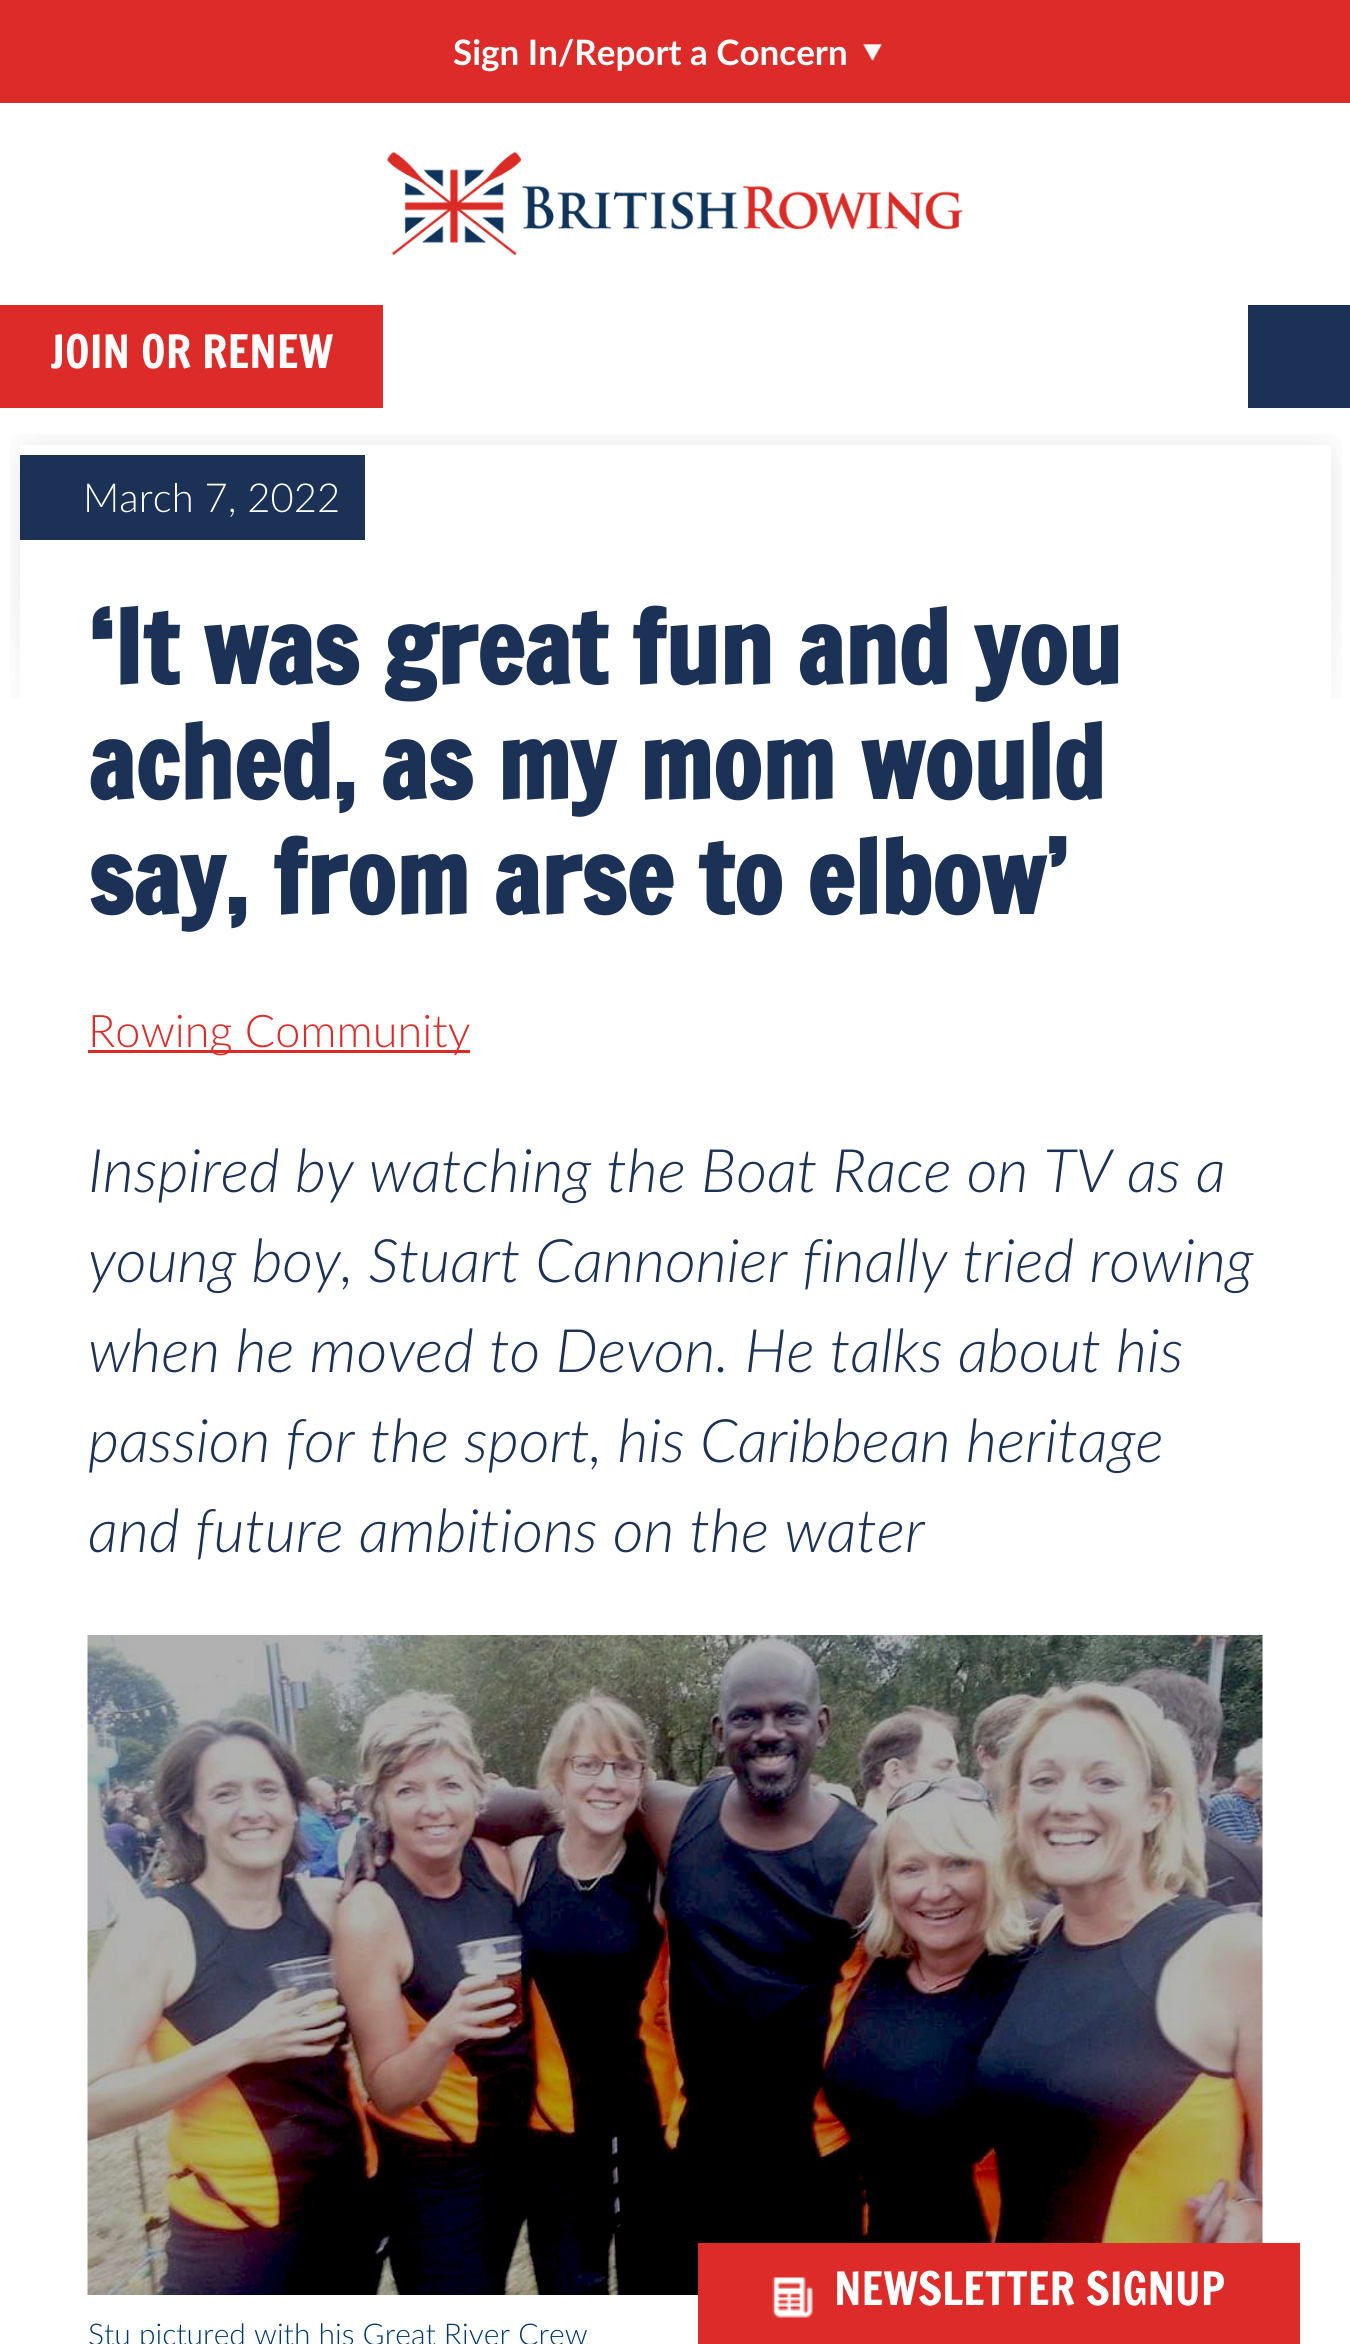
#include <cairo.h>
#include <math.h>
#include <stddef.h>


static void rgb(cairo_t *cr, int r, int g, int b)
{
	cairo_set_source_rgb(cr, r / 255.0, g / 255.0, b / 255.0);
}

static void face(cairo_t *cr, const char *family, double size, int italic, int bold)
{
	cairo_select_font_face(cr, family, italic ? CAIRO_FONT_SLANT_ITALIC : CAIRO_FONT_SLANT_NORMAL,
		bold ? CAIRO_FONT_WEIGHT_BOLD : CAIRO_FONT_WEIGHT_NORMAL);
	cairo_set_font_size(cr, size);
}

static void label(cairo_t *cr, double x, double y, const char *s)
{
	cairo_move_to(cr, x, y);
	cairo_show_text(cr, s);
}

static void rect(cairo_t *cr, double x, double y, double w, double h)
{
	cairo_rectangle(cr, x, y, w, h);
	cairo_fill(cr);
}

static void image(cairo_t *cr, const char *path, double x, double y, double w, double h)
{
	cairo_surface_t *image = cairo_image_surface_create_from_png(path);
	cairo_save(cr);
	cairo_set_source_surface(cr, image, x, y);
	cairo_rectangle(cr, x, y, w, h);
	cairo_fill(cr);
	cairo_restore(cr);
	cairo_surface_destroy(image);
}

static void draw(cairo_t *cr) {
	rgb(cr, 255, 255, 255);
	cairo_paint(cr);
	rgb(cr, 220, 43, 40);
	rect(cr, 0, 0, 1350, 103);
	face(cr, "Lato", 35, 0, 1);
	rgb(cr, 255, 255, 255);
	label(cr, 453, 65, "Sign In/Report a Concern");
	image(cr, "image0.png", 863, 44, 19, 17);
	image(cr, "image1.png", 387, 152, 576, 103);
	rgb(cr, 220, 43, 40);
	rect(cr, 0, 305, 383, 103);
	face(cr, "Francois One", 45, 0, 0);
	rgb(cr, 255, 255, 255);
	label(cr, 50, 368, "JOIN OR RENEW");
	rgb(cr, 27, 49, 86);
	rect(cr, 1248, 305, 102, 103);
	image(cr, "image2.png", 10, 434, 1332, 265);
	rgb(cr, 255, 255, 255);
	rect(cr, 20, 445, 1307, 254);
	rgb(cr, 27, 49, 86);
	rect(cr, 20, 455, 345, 85);
	face(cr, "Lato Light", 40, 0, 0);
	rgb(cr, 255, 255, 255);
	label(cr, 83, 512, "March 7, 2022");
	face(cr, "Francois One", 100, 0, 1);
	rgb(cr, 27, 49, 86);
	label(cr, 88, 684, "‘It was great fun and you");
	label(cr, 88, 799, "ached, as my mom would");
	label(cr, 88, 914, "say, from arse to elbow’");
	rgb(cr, 220, 43, 40);
	rect(cr, 88, 1050, 382, 3);
	face(cr, "Lato Light", 45, 0, 0);
	label(cr, 88, 1047, "Rowing Community");
	face(cr, "Lato Light", 60, 1, 0);
	rgb(cr, 27, 49, 86);
	label(cr, 88, 1192, "Inspired by watching the Boat Race on TV as a");
	label(cr, 88, 1282, "young boy, Stuart Cannonier finally tried rowing");
	label(cr, 88, 1372, "when he moved to Devon. He talks about his");
	label(cr, 88, 1462, "passion for the sport, his Caribbean heritage");
	label(cr, 88, 1552, "and future ambitions on the water");
	image(cr, "image3.png", 87, 1635, 1176, 660);
	face(cr, "Lato Light", 30, 0, 0);
	rgb(cr, 0, 56, 107);
	label(cr, 88, 2345, "Stu pictured with his Great River Crew");
	rgb(cr, 220, 43, 40);
	rect(cr, 698, 2243, 602, 101);
	image(cr, "image4.png", 772, 2277, 41, 41);
	face(cr, "Francois One", 45, 0, 0);
	rgb(cr, 255, 255, 255);
	label(cr, 834, 2305, "NEWSLETTER SIGNUP");
}

int main(void) {
	cairo_surface_t *surface = cairo_image_surface_create(CAIRO_FORMAT_RGB24, 1350, 2344);
	cairo_t *cr = cairo_create(surface);
	cairo_font_options_t *options = cairo_font_options_create();
	cairo_font_options_set_hint_metrics(options, CAIRO_HINT_METRICS_OFF);
	cairo_font_options_set_hint_style(options, CAIRO_HINT_STYLE_NONE);
	cairo_set_font_options(cr, options);
	cairo_set_miter_limit(cr, 4);
	draw(cr);
	cairo_surface_write_to_png(surface, "render.png");
	cairo_font_options_destroy(options);
	cairo_destroy(cr);
	cairo_surface_destroy(surface);
	return 0;
}
